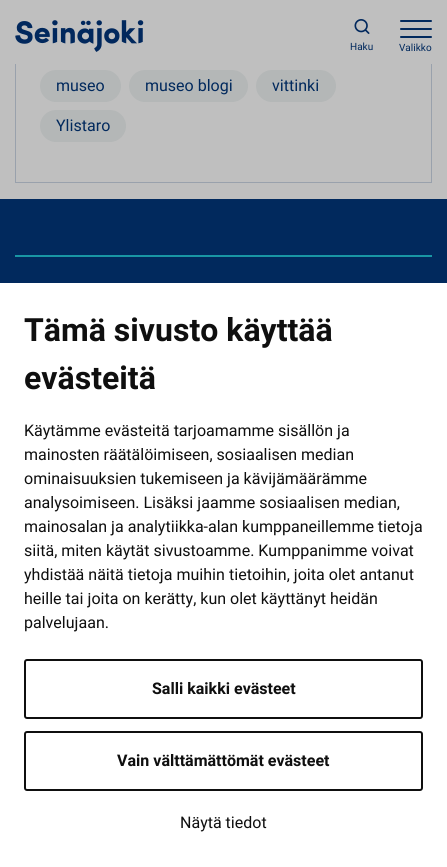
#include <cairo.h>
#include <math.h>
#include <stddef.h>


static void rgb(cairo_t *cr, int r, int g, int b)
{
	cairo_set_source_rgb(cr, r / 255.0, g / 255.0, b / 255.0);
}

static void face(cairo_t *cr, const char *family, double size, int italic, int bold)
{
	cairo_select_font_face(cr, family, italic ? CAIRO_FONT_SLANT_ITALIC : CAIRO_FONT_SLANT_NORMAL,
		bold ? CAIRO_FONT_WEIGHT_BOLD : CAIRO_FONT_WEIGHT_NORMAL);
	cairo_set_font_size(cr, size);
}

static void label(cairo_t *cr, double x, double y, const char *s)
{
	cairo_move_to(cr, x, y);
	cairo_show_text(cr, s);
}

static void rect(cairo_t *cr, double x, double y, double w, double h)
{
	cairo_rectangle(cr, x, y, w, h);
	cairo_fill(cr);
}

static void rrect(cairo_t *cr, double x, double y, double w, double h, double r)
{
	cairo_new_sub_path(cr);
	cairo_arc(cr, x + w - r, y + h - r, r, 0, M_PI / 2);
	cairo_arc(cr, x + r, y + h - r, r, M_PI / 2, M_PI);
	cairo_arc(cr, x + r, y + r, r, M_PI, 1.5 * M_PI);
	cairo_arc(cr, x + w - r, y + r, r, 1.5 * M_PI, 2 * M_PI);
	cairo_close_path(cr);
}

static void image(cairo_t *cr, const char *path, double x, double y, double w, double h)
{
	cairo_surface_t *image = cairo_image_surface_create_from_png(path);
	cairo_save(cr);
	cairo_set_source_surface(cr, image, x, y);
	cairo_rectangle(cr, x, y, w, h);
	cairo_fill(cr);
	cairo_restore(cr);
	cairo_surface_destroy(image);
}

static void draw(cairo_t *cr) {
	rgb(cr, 191, 191, 191);
	cairo_paint(cr);
	cairo_rectangle(cr, 15.5, -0.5, 416, 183);
	rgb(cr, 153, 161, 172);
	cairo_set_line_width(cr, 1);
	cairo_stroke(cr);
	rgb(cr, 191, 191, 191);
	rect(cr, 15, 0, 417, 64);
	image(cr, "image0.png", 15, 20, 129, 32);
	image(cr, "image1.png", 354, 19, 16, 15);
	face(cr, "Heebo", 10, 0, 0);
	rgb(cr, 1, 41, 93);
	label(cr, 350, 50, "Haku");
	rrect(cr, 400, 28, 32, 2, 1);
	cairo_fill(cr);
	rrect(cr, 400, 20, 32, 2, 1);
	cairo_fill(cr);
	rrect(cr, 400, 36, 32, 2, 1);
	cairo_fill(cr);
	label(cr, 399, 51, "Valikko");
	rgb(cr, 180, 183, 183);
	rrect(cr, 40, 70, 81, 32, 16);
	cairo_fill(cr);
	face(cr, "Heebo", 16, 0, 0);
	rgb(cr, 1, 41, 93);
	label(cr, 56, 91, "museo");
	rgb(cr, 180, 183, 183);
	rrect(cr, 129, 70, 119, 32, 16);
	cairo_fill(cr);
	rgb(cr, 1, 41, 93);
	label(cr, 145, 91, "museo blogi");
	rgb(cr, 180, 183, 183);
	rrect(cr, 256, 70, 80, 32, 16);
	cairo_fill(cr);
	rgb(cr, 1, 41, 93);
	label(cr, 272, 91, "vittinki");
	rgb(cr, 180, 183, 183);
	rrect(cr, 40, 110, 86, 32, 16);
	cairo_fill(cr);
	rgb(cr, 1, 41, 93);
	label(cr, 56, 131, "Ylistaro");
	rect(cr, 0, 199, 447, 84);
	rgb(cr, 25, 150, 164);
	rect(cr, 15, 255, 417, 2);
	rgb(cr, 255, 255, 255);
	rect(cr, 0, 283, 447, 584);
	face(cr, "Heebo", 32, 0, 1);
	rgb(cr, 15, 15, 15);
	label(cr, 24, 341, "Tämä sivusto käyttää");
	label(cr, 24, 389, "evästeitä");
	face(cr, "Heebo", 16, 0, 0);
	label(cr, 24, 436, "Käytämme evästeitä tarjoamamme sisällön ja");
	label(cr, 24, 460, "mainosten räätälöimiseen, sosiaalisen median");
	label(cr, 24, 484, "ominaisuuksien tukemiseen ja kävijämäärämme");
	label(cr, 24, 508, "analysoimiseen. Lisäksi jaamme sosiaalisen median,");
	label(cr, 24, 532, "mainosalan ja analytiikka-alan kumppaneillemme tietoja");
	label(cr, 24, 556, "siitä, miten käytät sivustoamme. Kumppanimme voivat");
	label(cr, 24, 580, "yhdistää näitä tietoja muihin tietoihin, joita olet antanut");
	label(cr, 24, 604, "heille tai joita on kerätty, kun olet käyttänyt heidän");
	label(cr, 24, 628, "palvelujaan.");
	rrect(cr, 25, 660, 397, 58, 2);
	cairo_set_line_width(cr, 2);
	cairo_stroke(cr);
	face(cr, "Heebo", 16, 0, 1);
	label(cr, 152, 694, "Salli kaikki evästeet");
	rrect(cr, 25, 732, 397, 58, 2);
	cairo_stroke(cr);
	label(cr, 117, 766, "Vain välttämättömät evästeet");
	face(cr, "Heebo", 16, 0, 0);
	label(cr, 180, 828, "Näytä tiedot");
}

int main(void) {
	cairo_surface_t *surface = cairo_image_surface_create(CAIRO_FORMAT_RGB24, 447, 867);
	cairo_t *cr = cairo_create(surface);
	cairo_font_options_t *options = cairo_font_options_create();
	cairo_font_options_set_hint_metrics(options, CAIRO_HINT_METRICS_OFF);
	cairo_font_options_set_hint_style(options, CAIRO_HINT_STYLE_NONE);
	cairo_set_font_options(cr, options);
	cairo_set_miter_limit(cr, 4);
	draw(cr);
	cairo_surface_write_to_png(surface, "render.png");
	cairo_font_options_destroy(options);
	cairo_destroy(cr);
	cairo_surface_destroy(surface);
	return 0;
}
